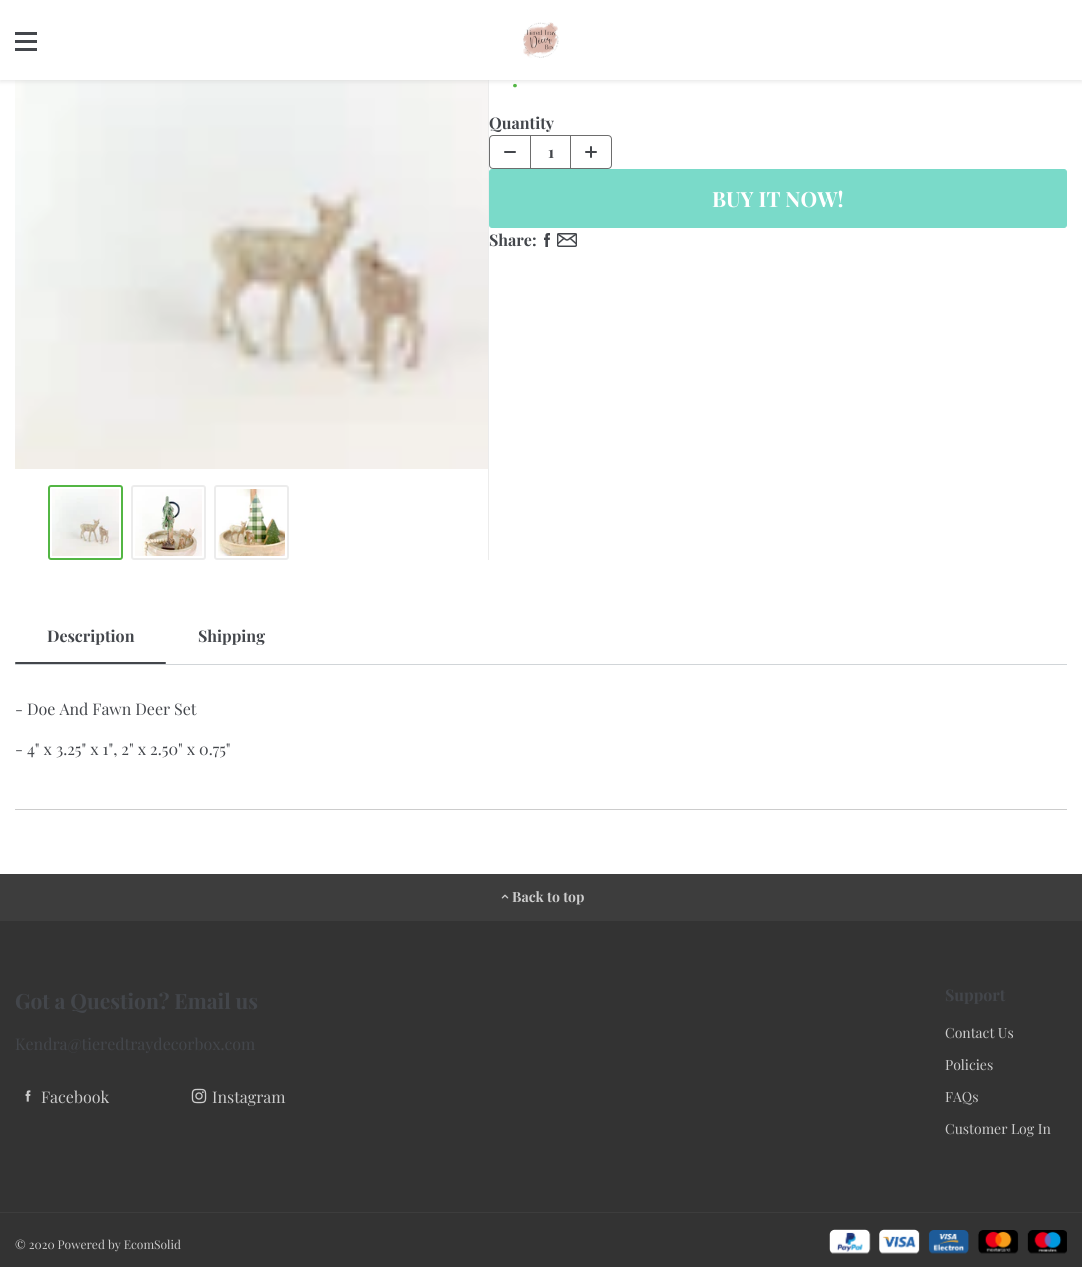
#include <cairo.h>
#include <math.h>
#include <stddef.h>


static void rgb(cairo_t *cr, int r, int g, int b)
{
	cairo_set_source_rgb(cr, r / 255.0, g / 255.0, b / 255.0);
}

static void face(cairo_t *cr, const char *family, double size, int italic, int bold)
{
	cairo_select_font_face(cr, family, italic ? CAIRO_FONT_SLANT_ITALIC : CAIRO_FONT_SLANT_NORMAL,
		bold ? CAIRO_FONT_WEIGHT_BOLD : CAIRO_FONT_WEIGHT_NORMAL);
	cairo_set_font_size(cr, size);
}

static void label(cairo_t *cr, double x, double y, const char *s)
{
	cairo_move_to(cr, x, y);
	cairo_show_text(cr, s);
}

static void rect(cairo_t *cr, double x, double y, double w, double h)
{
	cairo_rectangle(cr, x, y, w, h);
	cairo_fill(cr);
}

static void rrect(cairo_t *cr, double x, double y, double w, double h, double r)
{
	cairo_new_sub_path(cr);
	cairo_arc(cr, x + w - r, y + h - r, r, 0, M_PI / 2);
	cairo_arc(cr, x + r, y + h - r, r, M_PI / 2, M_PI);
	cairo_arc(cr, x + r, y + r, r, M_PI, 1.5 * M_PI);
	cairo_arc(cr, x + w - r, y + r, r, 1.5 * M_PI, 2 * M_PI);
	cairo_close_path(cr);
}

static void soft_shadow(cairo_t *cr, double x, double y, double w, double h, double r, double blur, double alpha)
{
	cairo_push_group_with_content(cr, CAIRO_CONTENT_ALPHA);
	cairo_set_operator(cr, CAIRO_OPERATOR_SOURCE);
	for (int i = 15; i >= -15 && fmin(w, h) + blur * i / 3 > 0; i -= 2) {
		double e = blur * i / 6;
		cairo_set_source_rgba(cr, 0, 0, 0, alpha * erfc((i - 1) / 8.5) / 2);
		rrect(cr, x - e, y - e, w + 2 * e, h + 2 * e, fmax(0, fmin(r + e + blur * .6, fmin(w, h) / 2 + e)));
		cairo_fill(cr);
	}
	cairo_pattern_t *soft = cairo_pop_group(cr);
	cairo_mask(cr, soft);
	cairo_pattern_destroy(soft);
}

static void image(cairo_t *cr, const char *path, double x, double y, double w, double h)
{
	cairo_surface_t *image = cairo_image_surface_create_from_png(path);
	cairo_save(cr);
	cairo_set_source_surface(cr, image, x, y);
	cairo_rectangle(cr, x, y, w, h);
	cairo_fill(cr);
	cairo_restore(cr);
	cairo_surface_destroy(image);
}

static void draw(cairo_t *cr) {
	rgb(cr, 255, 255, 255);
	cairo_paint(cr);
	image(cr, "image1.png", 15, 80, 473, 389);
	rgb(cr, 236, 236, 236);
	rect(cr, 488, 80, 1, 480);
	rgb(cr, 212, 212, 212);
	soft_shadow(cr, 0, 2, 1082, 80, 0, 2, 0.5);
	rgb(cr, 255, 255, 255);
	rect(cr, 0, 0, 1082, 80);
	rgb(cr, 67, 70, 75);
	rect(cr, 15, 32, 22, 3);
	rect(cr, 15, 40, 22, 3);
	rect(cr, 15, 48, 22, 3);
	image(cr, "image0.png", 523, 22, 36, 36);
	rrect(cr, 49, 486, 73, 73, 2);
	rgb(cr, 83, 182, 68);
	cairo_stroke(cr);
	image(cr, "image2.png", 52, 489, 67, 67);
	rrect(cr, 132, 486, 73, 73, 2);
	rgb(cr, 236, 236, 236);
	cairo_stroke(cr);
	image(cr, "image3.png", 135, 489, 67, 67);
	rrect(cr, 215, 486, 73, 73, 2);
	cairo_stroke(cr);
	image(cr, "image4.png", 218, 489, 67, 67);
	face(cr, "Playfair Display", 22, 0, 1);
	rgb(cr, 83, 182, 68);
	label(cr, 512, 87, ".");
	face(cr, "Playfair Display", 16, 0, 1);
	rgb(cr, 67, 70, 75);
	label(cr, 489, 129, "Quantity");
	rrect(cr, 489.5, 135.5, 122, 33, 3.5);
	rgb(cr, 109, 109, 109);
	cairo_set_line_width(cr, 1);
	cairo_stroke(cr);
	image(cr, "image5.png", 504, 151, 12, 2);
	rect(cr, 570, 136, 1, 32);
	rect(cr, 530, 136, 1, 32);
	rgb(cr, 67, 70, 75);
	label(cr, 548, 158, "1");
	image(cr, "image6.png", 585, 146, 12, 12);
	rgb(cr, 122, 218, 201);
	rrect(cr, 489.5, 169.5, 577, 58, 2.5);
	cairo_fill_preserve(cr);
	cairo_stroke(cr);
	face(cr, "Playfair Display", 21, 0, 1);
	rgb(cr, 255, 255, 255);
	label(cr, 712, 207, "BUY IT NOW!");
	face(cr, "Playfair Display", 16, 0, 1);
	rgb(cr, 67, 70, 75);
	label(cr, 489, 246, "Share:");
	image(cr, "image7.png", 544, 233, 6, 14);
	image(cr, "image8.png", 557, 233, 20, 14);
	rgb(cr, 209, 213, 216);
	rect(cr, 15, 664, 1052, 1);
	rgb(cr, 67, 70, 75);
	label(cr, 47, 642, "Description");
	label(cr, 198, 642, "Shipping");
	rrect(cr, 15, 662, 151, 2, 1);
	cairo_fill(cr);
	rgb(cr, 204, 204, 204);
	rect(cr, 15, 809, 1052, 1);
	face(cr, "Playfair Display", 16, 0, 0);
	rgb(cr, 67, 70, 75);
	label(cr, 15, 715, "- Doe And Fawn Deer Set");
	label(cr, 15, 755, "- 4\" x 3.25\" x 1\", 2\" x 2.50\" x 0.75\"");
	rgb(cr, 61, 61, 61);
	rect(cr, 0, 874, 1082, 47);
	image(cr, "image9.png", 501, 894, 8, 5);
	face(cr, "Playfair Display", 14, 0, 1);
	rgb(cr, 204, 204, 204);
	label(cr, 512, 902, "Back to top");
	rgb(cr, 51, 51, 51);
	rect(cr, 0, 921, 1082, 291);
	face(cr, "Playfair Display", 21, 0, 1);
	rgb(cr, 67, 70, 75);
	label(cr, 15, 1009, "Got a Question? Email us");
	face(cr, "Playfair Display", 16, 0, 0);
	label(cr, 15, 1050, "Kendra@tieredtraydecorbox.com");
	image(cr, "image10.png", 25, 1090, 6, 12);
	rgb(cr, 204, 204, 204);
	label(cr, 41, 1103, "Facebook");
	image(cr, "image11.png", 191, 1088, 16, 16);
	label(cr, 212, 1103, "Instagram");
	face(cr, "Playfair Display", 16, 0, 1);
	rgb(cr, 67, 70, 75);
	label(cr, 945, 1001, "Support");
	face(cr, "Playfair Display", 14, 0, 0);
	rgb(cr, 204, 204, 204);
	label(cr, 945, 1038, "Contact Us");
	label(cr, 945, 1070, "Policies");
	label(cr, 945, 1102, "FAQs");
	label(cr, 945, 1134, "Customer Log In");
	rgb(cr, 51, 51, 51);
	rect(cr, 0, 1213, 1082, 54);
	rgb(cr, 61, 61, 61);
	rect(cr, 0, 1212, 1082, 1);
	face(cr, "Playfair Display", 12, 0, 0);
	rgb(cr, 204, 204, 204);
	label(cr, 15, 1249, "© 2020 Powered by EcomSolid");
	image(cr, "image12.png", 829, 1229, 238, 25);
}

int main(void) {
	cairo_surface_t *surface = cairo_image_surface_create(CAIRO_FORMAT_RGB24, 1082, 1267);
	cairo_t *cr = cairo_create(surface);
	cairo_font_options_t *options = cairo_font_options_create();
	cairo_font_options_set_hint_metrics(options, CAIRO_HINT_METRICS_OFF);
	cairo_font_options_set_hint_style(options, CAIRO_HINT_STYLE_NONE);
	cairo_set_font_options(cr, options);
	cairo_set_miter_limit(cr, 4);
	draw(cr);
	cairo_surface_write_to_png(surface, "render.png");
	cairo_font_options_destroy(options);
	cairo_destroy(cr);
	cairo_surface_destroy(surface);
	return 0;
}
